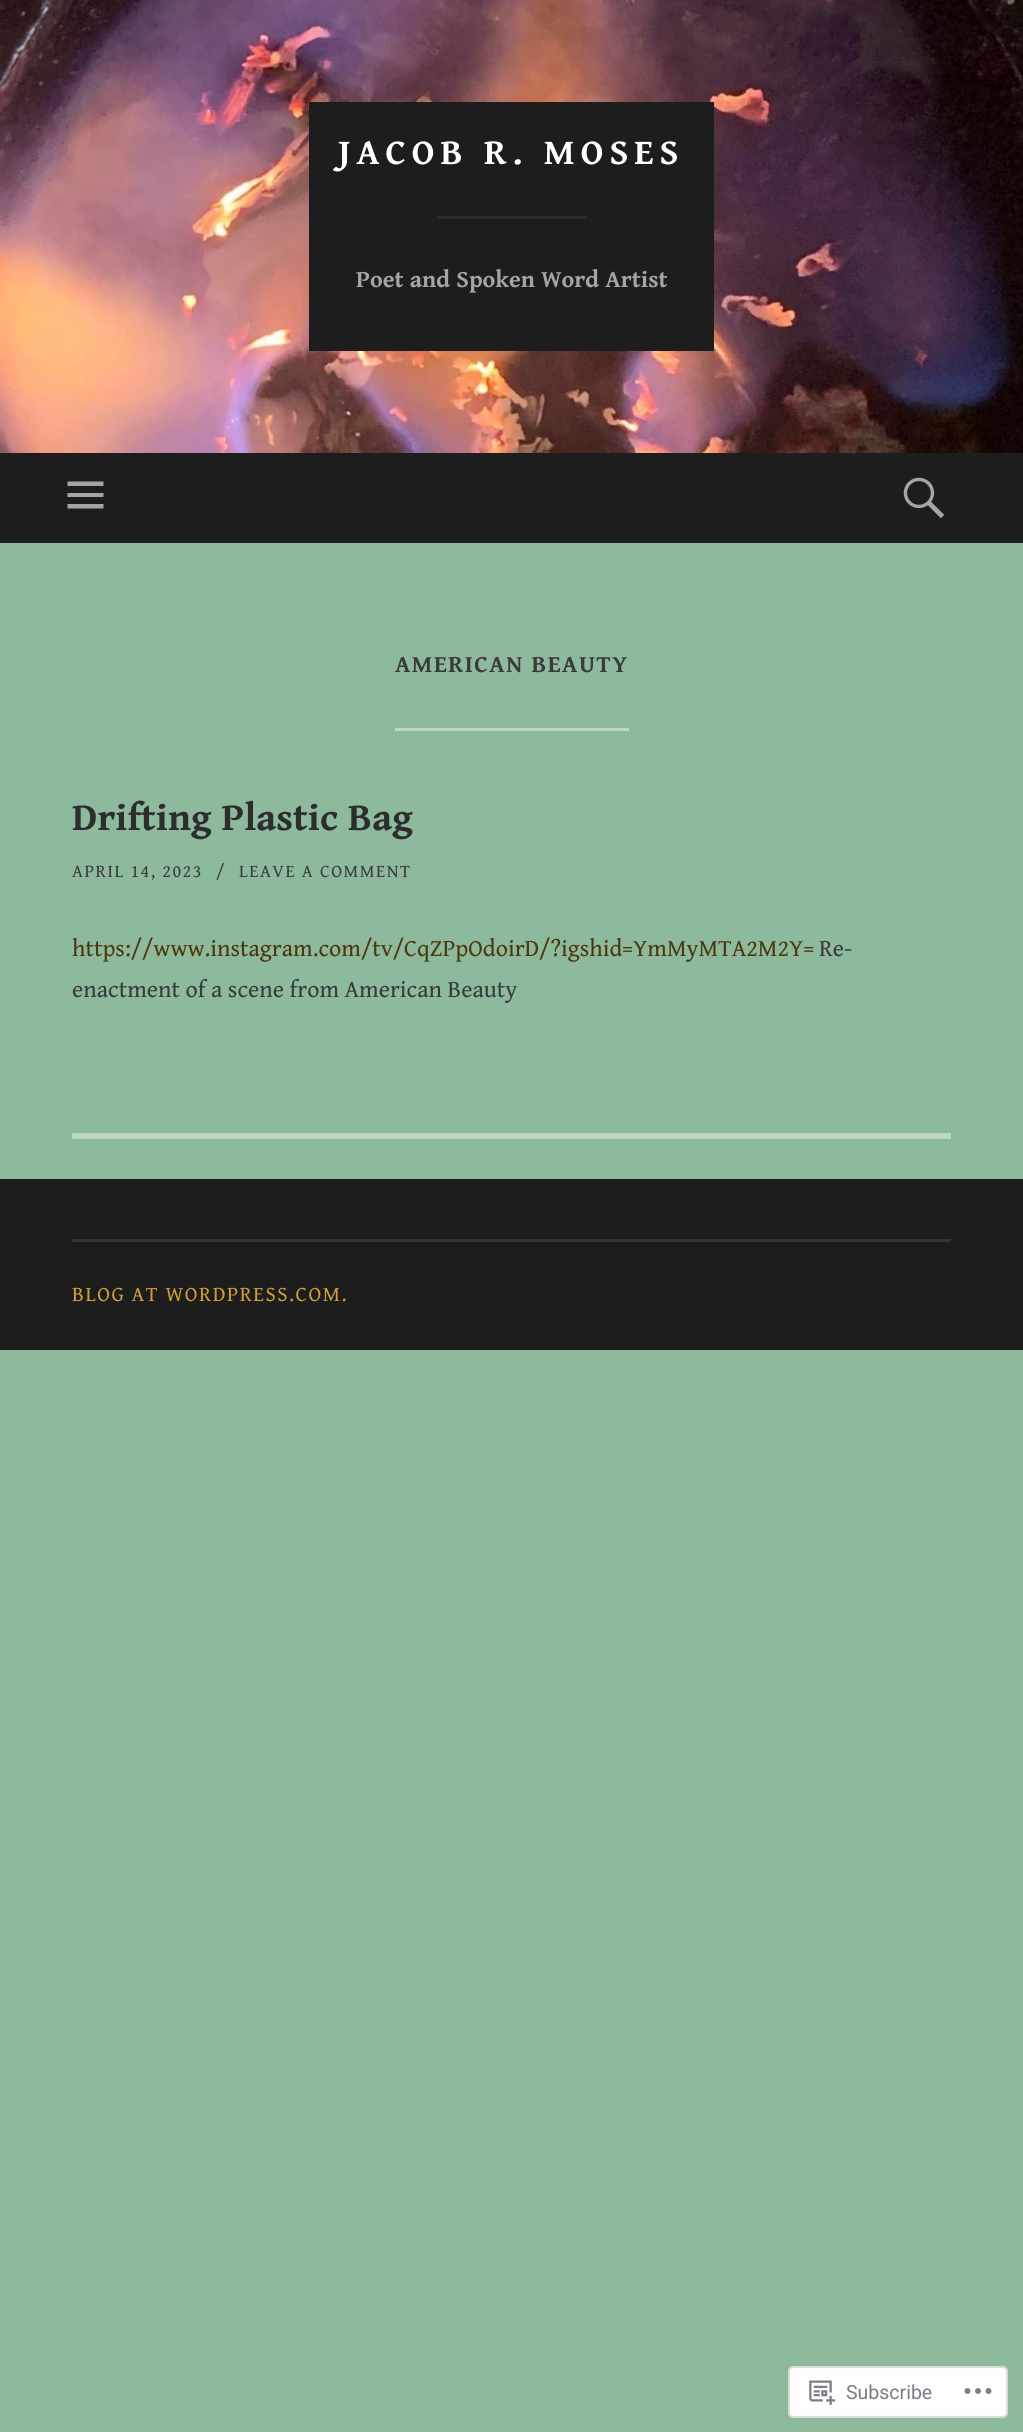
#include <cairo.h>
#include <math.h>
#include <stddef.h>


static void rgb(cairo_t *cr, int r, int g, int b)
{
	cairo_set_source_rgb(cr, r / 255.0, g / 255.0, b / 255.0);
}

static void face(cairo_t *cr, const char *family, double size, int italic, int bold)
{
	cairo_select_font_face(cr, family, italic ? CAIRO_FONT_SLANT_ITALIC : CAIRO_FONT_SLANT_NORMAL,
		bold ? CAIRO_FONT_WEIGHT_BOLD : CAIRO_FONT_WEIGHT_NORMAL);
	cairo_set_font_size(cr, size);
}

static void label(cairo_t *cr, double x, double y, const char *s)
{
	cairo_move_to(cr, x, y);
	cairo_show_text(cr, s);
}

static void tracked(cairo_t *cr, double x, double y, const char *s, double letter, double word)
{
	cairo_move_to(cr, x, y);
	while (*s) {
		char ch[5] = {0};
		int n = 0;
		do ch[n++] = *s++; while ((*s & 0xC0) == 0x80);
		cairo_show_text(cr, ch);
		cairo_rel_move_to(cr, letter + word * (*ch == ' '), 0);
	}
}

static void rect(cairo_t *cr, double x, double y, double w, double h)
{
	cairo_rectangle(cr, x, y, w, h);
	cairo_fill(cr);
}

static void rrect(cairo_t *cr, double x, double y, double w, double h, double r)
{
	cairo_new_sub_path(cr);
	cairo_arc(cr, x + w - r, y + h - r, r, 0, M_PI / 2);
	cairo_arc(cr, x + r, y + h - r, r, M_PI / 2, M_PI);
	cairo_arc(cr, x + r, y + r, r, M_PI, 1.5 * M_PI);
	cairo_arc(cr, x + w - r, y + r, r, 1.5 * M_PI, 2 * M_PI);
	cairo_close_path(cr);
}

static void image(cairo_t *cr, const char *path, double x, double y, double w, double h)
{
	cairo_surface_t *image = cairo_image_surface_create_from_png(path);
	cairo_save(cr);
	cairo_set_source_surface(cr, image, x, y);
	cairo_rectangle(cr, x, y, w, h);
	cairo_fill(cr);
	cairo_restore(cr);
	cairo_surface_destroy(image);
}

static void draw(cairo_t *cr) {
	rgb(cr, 141, 186, 157);
	cairo_paint(cr);
	image(cr, "image0.png", 0, 0, 1023, 453);
	rgb(cr, 29, 29, 29);
	rect(cr, 309, 102, 405, 249);
	face(cr, "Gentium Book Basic", 36, 0, 1);
	rgb(cr, 255, 255, 255);
	tracked(cr, 338, 164, "JACOB R. MOSES", 6, 0);
	rgb(cr, 43, 43, 43);
	rect(cr, 437, 216, 150, 3);
	face(cr, "Gentium Book Basic", 24, 0, 1);
	rgb(cr, 165, 165, 165);
	label(cr, 356, 287, "Poet and Spoken Word Artist");
	rgb(cr, 29, 29, 29);
	rect(cr, 0, 453, 1023, 90);
	rgb(cr, 165, 165, 165);
	cairo_new_path(cr);
	cairo_move_to(cr, 67.5, 508.5);
	cairo_line_to(cr, 67.5, 504);
	cairo_line_to(cr, 103.5, 504);
	cairo_line_to(cr, 103.5, 508.5);
	cairo_close_path(cr);
	cairo_move_to(cr, 67.5, 481.5);
	cairo_line_to(cr, 103.5, 481.5);
	cairo_line_to(cr, 103.5, 486);
	cairo_line_to(cr, 67.5, 486);
	cairo_close_path(cr);
	cairo_move_to(cr, 67.5, 497);
	cairo_line_to(cr, 67.5, 493);
	cairo_line_to(cr, 103.5, 493);
	cairo_line_to(cr, 103.5, 497);
	cairo_close_path(cr);
	cairo_fill(cr);
	image(cr, "image1.png", 903, 477, 42, 42);
	rgb(cr, 190, 212, 198);
	rect(cr, 395, 728, 234, 3);
	rgb(cr, 58, 58, 58);
	tracked(cr, 395, 672, "AMERICAN BEAUTY", 1.5, 0);
	rgb(cr, 190, 212, 198);
	rect(cr, 72, 1133, 879, 6);
	face(cr, "Gentium Book Basic", 39, 0, 1);
	rgb(cr, 45, 45, 45);
	label(cr, 72, 830, "Drifting Plastic Bag");
	face(cr, "Gentium Book Basic", 18, 0, 0);
	rgb(cr, 58, 58, 58);
	tracked(cr, 72, 877, "APRIL 14, 2023", 1.5, 0);
	tracked(cr, 216, 877, "/", 1.5, 0);
	tracked(cr, 239, 877, "LEAVE A COMMENT", 1.5, 0);
	face(cr, "Gentium Book Basic", 24, 0, 0);
	rgb(cr, 75, 55, 11);
	label(cr, 72, 956, "https://www.instagram.com/tv/CqZPpOdoirD/?igshid=YmMyMTA2M2Y=");
	rgb(cr, 58, 58, 58);
	label(cr, 819, 956, "Re-");
	label(cr, 72, 997, "enactment of a scene from American Beauty");
	rgb(cr, 29, 29, 29);
	rect(cr, 0, 1179, 1023, 171);
	rgb(cr, 52, 52, 52);
	rect(cr, 72, 1239, 879, 3);
	face(cr, "Gentium Book Basic", 21, 0, 0);
	rgb(cr, 207, 158, 56);
	tracked(cr, 72, 1301, "BLOG AT WORDPRESS.COM.", 1.5, 0);
	rgb(cr, 253, 254, 253);
	rrect(cr, 789, 2367, 218, 50, 4);
	cairo_fill_preserve(cr);
	rgb(cr, 218, 219, 221);
	cairo_stroke(cr);
	image(cr, "image2.png", 809, 2380, 27, 25);
	face(cr, "Roboto", 19.5, 0, 0);
	rgb(cr, 120, 125, 131);
	label(cr, 846, 2399, "Subscribe");
	image(cr, "image3.png", 964, 2388, 28, 6);
}

int main(void) {
	cairo_surface_t *surface = cairo_image_surface_create(CAIRO_FORMAT_RGB24, 1023, 2432);
	cairo_t *cr = cairo_create(surface);
	cairo_font_options_t *options = cairo_font_options_create();
	cairo_font_options_set_hint_metrics(options, CAIRO_HINT_METRICS_OFF);
	cairo_font_options_set_hint_style(options, CAIRO_HINT_STYLE_NONE);
	cairo_set_font_options(cr, options);
	cairo_set_miter_limit(cr, 4);
	draw(cr);
	cairo_surface_write_to_png(surface, "render.png");
	cairo_font_options_destroy(options);
	cairo_destroy(cr);
	cairo_surface_destroy(surface);
	return 0;
}
